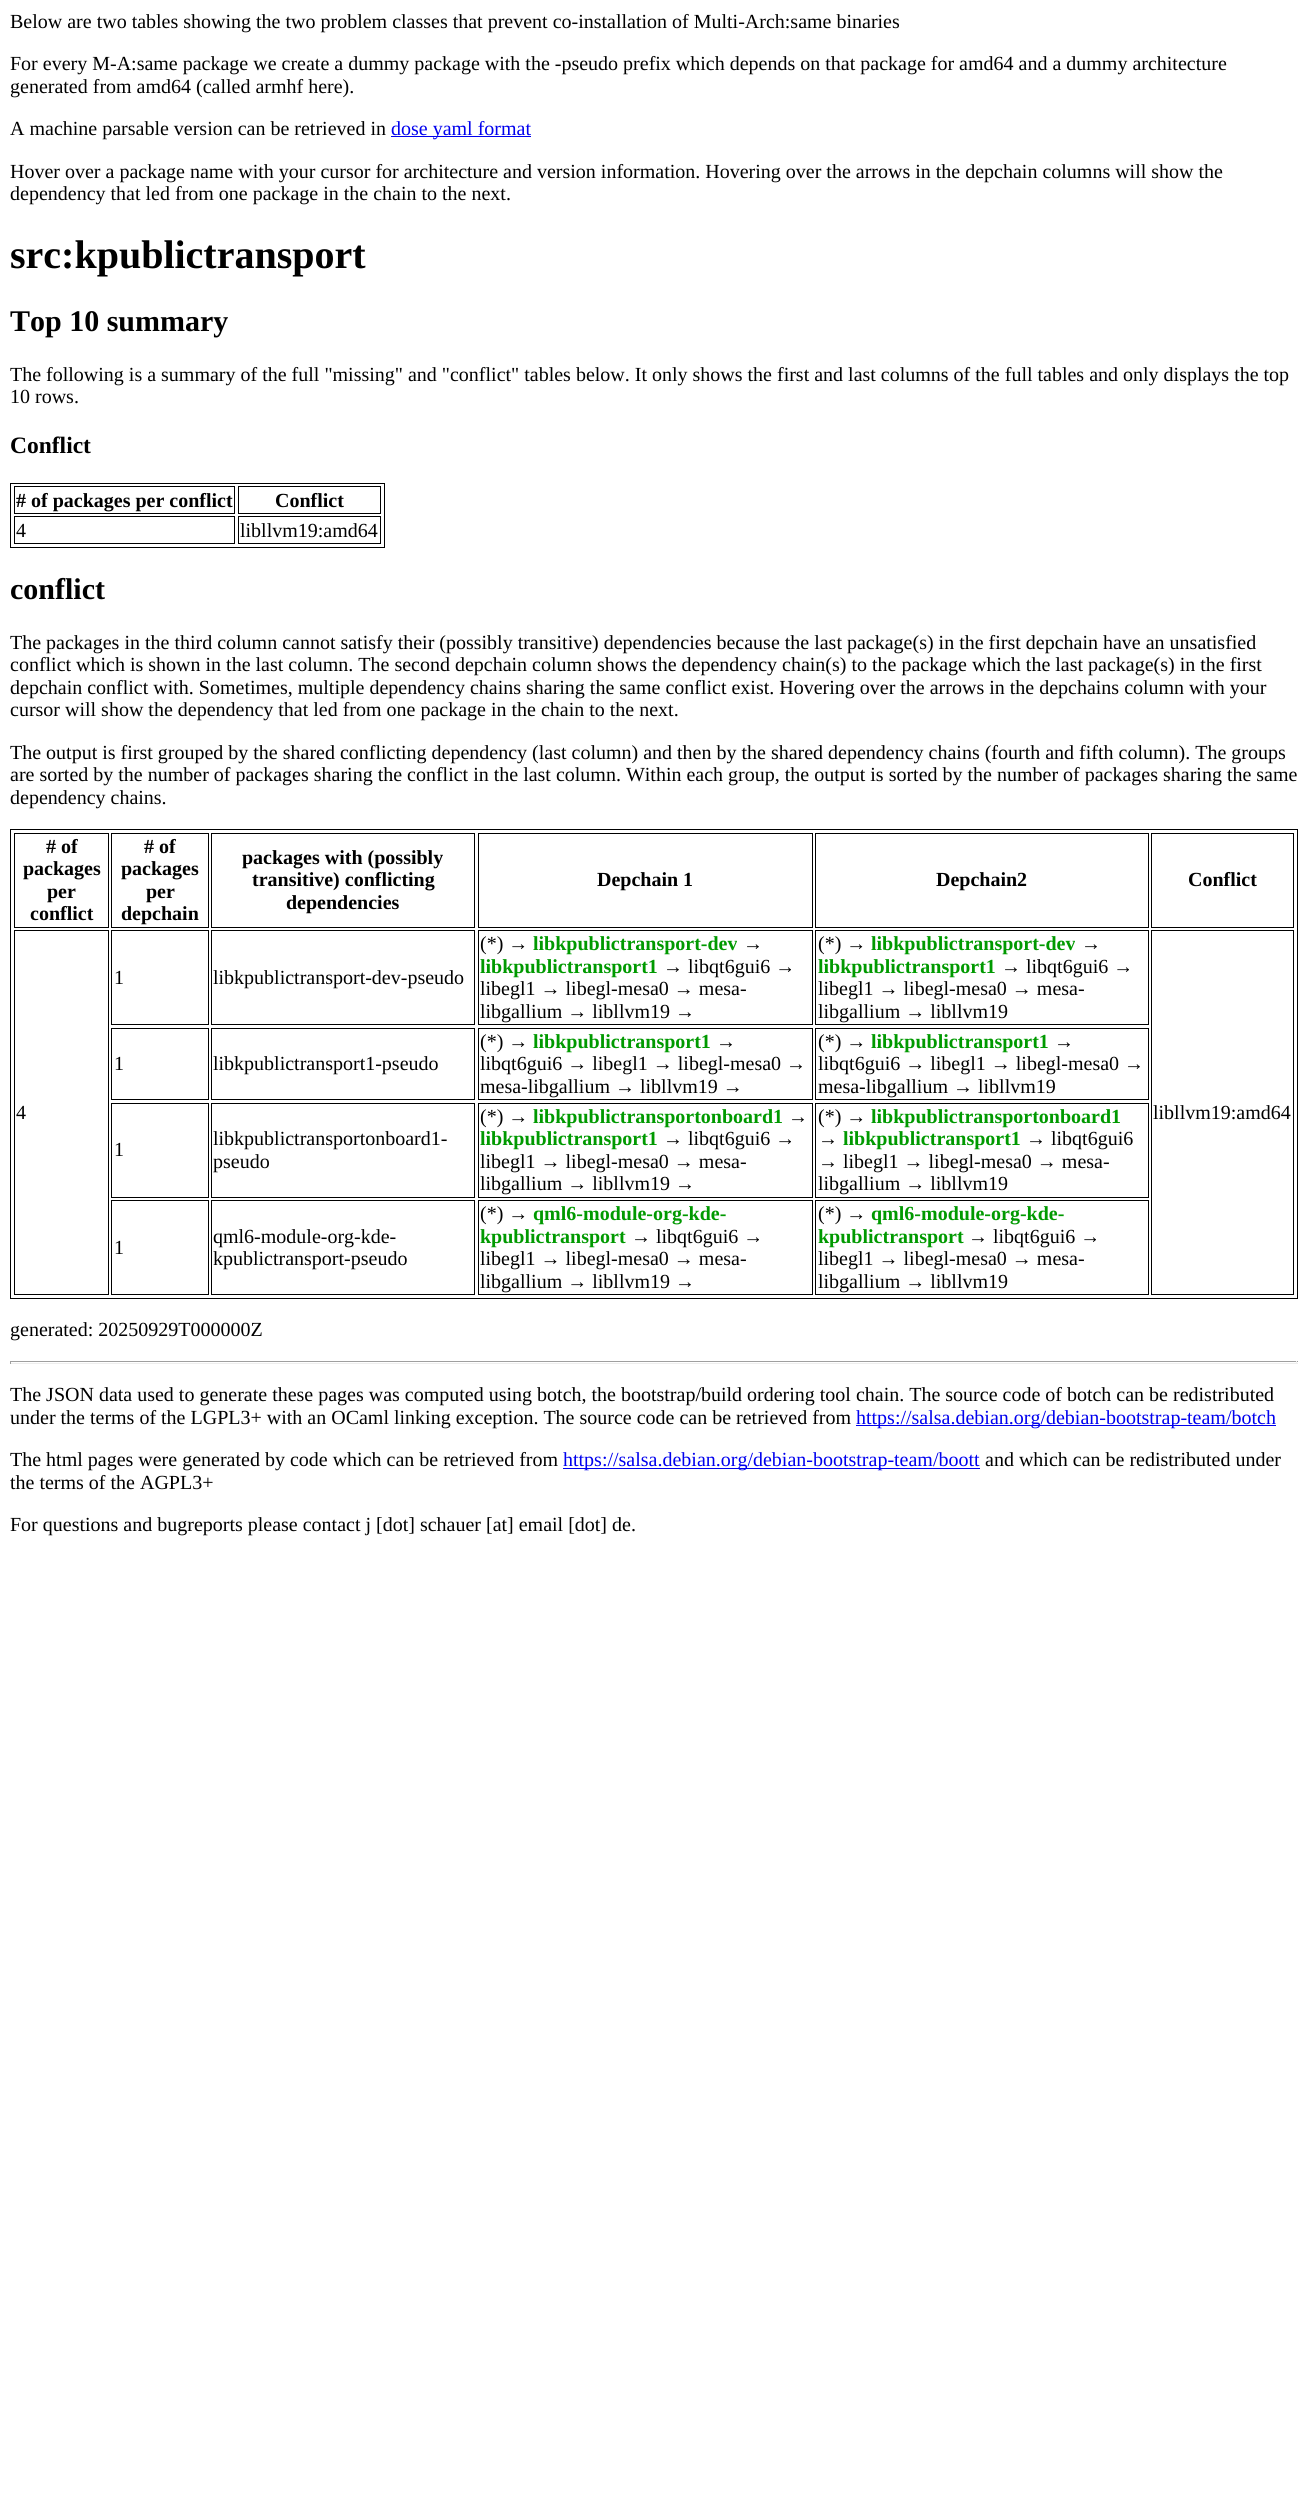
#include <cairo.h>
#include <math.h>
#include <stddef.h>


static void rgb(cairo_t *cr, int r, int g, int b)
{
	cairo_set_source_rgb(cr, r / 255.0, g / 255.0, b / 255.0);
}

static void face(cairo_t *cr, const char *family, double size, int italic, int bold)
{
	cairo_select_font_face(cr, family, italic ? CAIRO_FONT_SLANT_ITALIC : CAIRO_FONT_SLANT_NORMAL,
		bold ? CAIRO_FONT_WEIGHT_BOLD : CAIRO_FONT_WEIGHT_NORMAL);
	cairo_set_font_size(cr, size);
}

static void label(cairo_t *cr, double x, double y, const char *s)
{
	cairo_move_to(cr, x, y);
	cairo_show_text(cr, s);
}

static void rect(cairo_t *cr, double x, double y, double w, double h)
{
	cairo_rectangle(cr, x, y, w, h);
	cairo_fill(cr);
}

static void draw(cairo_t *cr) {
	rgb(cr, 255, 255, 255);
	cairo_paint(cr);
	face(cr, "Liberation Serif", 20, 0, 0);
	rgb(cr, 0, 0, 0);
	label(cr, 10, 28, "Below are two tables showing the two problem classes that prevent co-installation of Multi-Arch:same binaries");
	label(cr, 10, 70, "For every M-A:same package we create a dummy package with the -pseudo prefix which depends on that package for amd64 and a dummy architecture");
	label(cr, 10, 93, "generated from amd64 (called armhf here).");
	label(cr, 10, 135, "A machine parsable version can be retrieved in");
	rgb(cr, 0, 0, 238);
	rect(cr, 391, 136, 140, 1);
	label(cr, 391, 135, "dose yaml format");
	rgb(cr, 0, 0, 0);
	label(cr, 10, 178, "Hover over a package name with your cursor for architecture and version information. Hovering over the arrows in the depchain columns will show the");
	label(cr, 10, 200, "dependency that led from one package in the chain to the next.");
	face(cr, "Liberation Serif", 40, 0, 1);
	label(cr, 10, 268, "src:kpublictransport");
	face(cr, "Liberation Serif", 30, 0, 1);
	label(cr, 10, 331, "Top 10 summary");
	face(cr, "Liberation Serif", 20, 0, 0);
	label(cr, 10, 381, "The following is a summary of the full \"missing\" and \"conflict\" tables below. It only shows the first and last columns of the full tables and only displays the top");
	label(cr, 10, 403, "10 rows.");
	face(cr, "Liberation Serif", 23.5, 0, 1);
	label(cr, 10, 453, "Conflict");
	cairo_rectangle(cr, 10.5, 483.5, 374, 64);
	cairo_set_line_width(cr, 1);
	cairo_stroke(cr);
	cairo_rectangle(cr, 14.5, 486.5, 220, 27);
	cairo_stroke(cr);
	face(cr, "Liberation Serif", 20, 0, 1);
	label(cr, 16, 507, "# of packages per conflict");
	cairo_rectangle(cr, 238.5, 486.5, 142, 27);
	cairo_stroke(cr);
	label(cr, 275, 507, "Conflict");
	cairo_rectangle(cr, 14.5, 516.5, 220, 27);
	cairo_stroke(cr);
	face(cr, "Liberation Serif", 20, 0, 0);
	label(cr, 16, 537, "4");
	cairo_rectangle(cr, 238.5, 516.5, 142, 27);
	cairo_stroke(cr);
	label(cr, 240, 537, "libllvm19:amd64");
	face(cr, "Liberation Serif", 30, 0, 1);
	label(cr, 10, 599, "conflict");
	face(cr, "Liberation Serif", 20, 0, 0);
	label(cr, 10, 649, "The packages in the third column cannot satisfy their (possibly transitive) dependencies because the last package(s) in the first depchain have an unsatisfied");
	label(cr, 10, 671, "conflict which is shown in the last column. The second depchain column shows the dependency chain(s) to the package which the last package(s) in the first");
	label(cr, 10, 694, "depchain conflict with. Sometimes, multiple dependency chains sharing the same conflict exist. Hovering over the arrows in the depchains column with your");
	label(cr, 10, 716, "cursor will show the dependency that led from one package in the chain to the next.");
	label(cr, 10, 759, "The output is first grouped by the shared conflicting dependency (last column) and then by the shared dependency chains (fourth and fifth column). The groups");
	label(cr, 10, 781, "are sorted by the number of packages sharing the conflict in the last column. Within each group, the output is sorted by the number of packages sharing the same");
	label(cr, 10, 804, "dependency chains.");
	cairo_rectangle(cr, 10.5, 829.5, 1287, 469);
	cairo_stroke(cr);
	cairo_rectangle(cr, 14.5, 833.5, 94, 94);
	cairo_stroke(cr);
	face(cr, "Liberation Serif", 20, 0, 1);
	label(cr, 46, 853, "# of");
	label(cr, 23, 875, "packages");
	label(cr, 47, 898, "per");
	label(cr, 30, 920, "conflict");
	cairo_rectangle(cr, 111.5, 833.5, 97, 94);
	cairo_stroke(cr);
	label(cr, 144, 853, "# of");
	label(cr, 121, 875, "packages");
	label(cr, 146, 898, "per");
	label(cr, 121, 920, "depchain");
	cairo_rectangle(cr, 211.5, 833.5, 263, 94);
	cairo_stroke(cr);
	label(cr, 242, 864, "packages with (possibly");
	label(cr, 252, 886, "transitive) conflicting");
	label(cr, 286, 909, "dependencies");
	cairo_rectangle(cr, 478.5, 833.5, 334, 94);
	cairo_stroke(cr);
	label(cr, 597, 886, "Depchain 1");
	cairo_rectangle(cr, 815.5, 833.5, 333, 94);
	cairo_stroke(cr);
	label(cr, 936, 886, "Depchain2");
	cairo_rectangle(cr, 1151.5, 833.5, 142, 94);
	cairo_stroke(cr);
	label(cr, 1188, 886, "Conflict");
	cairo_rectangle(cr, 111.5, 930.5, 97, 94);
	cairo_stroke(cr);
	face(cr, "Liberation Serif", 20, 0, 0);
	label(cr, 114, 984, "1");
	cairo_rectangle(cr, 211.5, 930.5, 263, 94);
	cairo_stroke(cr);
	label(cr, 213, 984, "libkpublictransport-dev-pseudo");
	cairo_rectangle(cr, 478.5, 930.5, 334, 94);
	cairo_stroke(cr);
	label(cr, 480, 950, "(*) →");
	face(cr, "Liberation Serif", 20, 0, 1);
	rgb(cr, 0, 153, 0);
	label(cr, 533, 950, "libkpublictransport-dev");
	face(cr, "Liberation Serif", 20, 0, 0);
	rgb(cr, 0, 0, 0);
	label(cr, 743, 950, "→");
	face(cr, "Liberation Serif", 20, 0, 1);
	rgb(cr, 0, 153, 0);
	label(cr, 480, 973, "libkpublictransport1");
	face(cr, "Liberation Serif", 20, 0, 0);
	rgb(cr, 0, 0, 0);
	label(cr, 663, 973, "→ libqt6gui6 →");
	label(cr, 480, 995, "libegl1 → libegl-mesa0 → mesa-");
	label(cr, 480, 1018, "libgallium → libllvm19 →");
	cairo_rectangle(cr, 815.5, 930.5, 333, 94);
	cairo_stroke(cr);
	label(cr, 818, 950, "(*) →");
	face(cr, "Liberation Serif", 20, 0, 1);
	rgb(cr, 0, 153, 0);
	label(cr, 871, 950, "libkpublictransport-dev");
	face(cr, "Liberation Serif", 20, 0, 0);
	rgb(cr, 0, 0, 0);
	label(cr, 1081, 950, "→");
	face(cr, "Liberation Serif", 20, 0, 1);
	rgb(cr, 0, 153, 0);
	label(cr, 818, 973, "libkpublictransport1");
	face(cr, "Liberation Serif", 20, 0, 0);
	rgb(cr, 0, 0, 0);
	label(cr, 1001, 973, "→ libqt6gui6 →");
	label(cr, 818, 995, "libegl1 → libegl-mesa0 → mesa-");
	label(cr, 818, 1018, "libgallium → libllvm19");
	cairo_rectangle(cr, 14.5, 930.5, 94, 364);
	cairo_stroke(cr);
	label(cr, 16, 1119, "4");
	cairo_rectangle(cr, 1151.5, 930.5, 142, 364);
	cairo_stroke(cr);
	label(cr, 1153, 1119, "libllvm19:amd64");
	cairo_rectangle(cr, 111.5, 1028.5, 97, 71);
	cairo_stroke(cr);
	label(cr, 114, 1070, "1");
	cairo_rectangle(cr, 211.5, 1028.5, 263, 71);
	cairo_stroke(cr);
	label(cr, 213, 1070, "libkpublictransport1-pseudo");
	cairo_rectangle(cr, 478.5, 1028.5, 334, 71);
	cairo_stroke(cr);
	label(cr, 480, 1048, "(*) →");
	face(cr, "Liberation Serif", 20, 0, 1);
	rgb(cr, 0, 153, 0);
	label(cr, 533, 1048, "libkpublictransport1");
	face(cr, "Liberation Serif", 20, 0, 0);
	rgb(cr, 0, 0, 0);
	label(cr, 716, 1048, "→");
	label(cr, 480, 1070, "libqt6gui6 → libegl1 → libegl-mesa0 →");
	label(cr, 480, 1093, "mesa-libgallium → libllvm19 →");
	cairo_rectangle(cr, 815.5, 1028.5, 333, 71);
	cairo_stroke(cr);
	label(cr, 818, 1048, "(*) →");
	face(cr, "Liberation Serif", 20, 0, 1);
	rgb(cr, 0, 153, 0);
	label(cr, 871, 1048, "libkpublictransport1");
	face(cr, "Liberation Serif", 20, 0, 0);
	rgb(cr, 0, 0, 0);
	label(cr, 1054, 1048, "→");
	label(cr, 818, 1070, "libqt6gui6 → libegl1 → libegl-mesa0 →");
	label(cr, 818, 1093, "mesa-libgallium → libllvm19");
	cairo_rectangle(cr, 111.5, 1103.5, 97, 94);
	cairo_stroke(cr);
	label(cr, 114, 1156, "1");
	cairo_rectangle(cr, 211.5, 1103.5, 263, 94);
	cairo_stroke(cr);
	label(cr, 213, 1145, "libkpublictransportonboard1-");
	label(cr, 213, 1168, "pseudo");
	cairo_rectangle(cr, 478.5, 1103.5, 334, 94);
	cairo_stroke(cr);
	label(cr, 480, 1123, "(*) →");
	face(cr, "Liberation Serif", 20, 0, 1);
	rgb(cr, 0, 153, 0);
	label(cr, 533, 1123, "libkpublictransportonboard1");
	face(cr, "Liberation Serif", 20, 0, 0);
	rgb(cr, 0, 0, 0);
	label(cr, 788, 1123, "→");
	face(cr, "Liberation Serif", 20, 0, 1);
	rgb(cr, 0, 153, 0);
	label(cr, 480, 1145, "libkpublictransport1");
	face(cr, "Liberation Serif", 20, 0, 0);
	rgb(cr, 0, 0, 0);
	label(cr, 663, 1145, "→ libqt6gui6 →");
	label(cr, 480, 1168, "libegl1 → libegl-mesa0 → mesa-");
	label(cr, 480, 1190, "libgallium → libllvm19 →");
	cairo_rectangle(cr, 815.5, 1103.5, 333, 94);
	cairo_stroke(cr);
	label(cr, 818, 1123, "(*) →");
	face(cr, "Liberation Serif", 20, 0, 1);
	rgb(cr, 0, 153, 0);
	label(cr, 871, 1123, "libkpublictransportonboard1");
	face(cr, "Liberation Serif", 20, 0, 0);
	rgb(cr, 0, 0, 0);
	label(cr, 818, 1145, "→");
	face(cr, "Liberation Serif", 20, 0, 1);
	rgb(cr, 0, 153, 0);
	label(cr, 843, 1145, "libkpublictransport1");
	face(cr, "Liberation Serif", 20, 0, 0);
	rgb(cr, 0, 0, 0);
	label(cr, 1026, 1145, "→ libqt6gui6");
	label(cr, 818, 1168, "→ libegl1 → libegl-mesa0 → mesa-");
	label(cr, 818, 1190, "libgallium → libllvm19");
	cairo_rectangle(cr, 111.5, 1200.5, 97, 94);
	cairo_stroke(cr);
	label(cr, 114, 1254, "1");
	cairo_rectangle(cr, 211.5, 1200.5, 263, 94);
	cairo_stroke(cr);
	label(cr, 213, 1243, "qml6-module-org-kde-");
	label(cr, 213, 1265, "kpublictransport-pseudo");
	cairo_rectangle(cr, 478.5, 1200.5, 334, 94);
	cairo_stroke(cr);
	label(cr, 480, 1220, "(*) →");
	face(cr, "Liberation Serif", 20, 0, 1);
	rgb(cr, 0, 153, 0);
	label(cr, 533, 1220, "qml6-module-org-kde-");
	label(cr, 480, 1243, "kpublictransport");
	face(cr, "Liberation Serif", 20, 0, 0);
	rgb(cr, 0, 0, 0);
	label(cr, 631, 1243, "→ libqt6gui6 →");
	label(cr, 480, 1265, "libegl1 → libegl-mesa0 → mesa-");
	label(cr, 480, 1288, "libgallium → libllvm19 →");
	cairo_rectangle(cr, 815.5, 1200.5, 333, 94);
	cairo_stroke(cr);
	label(cr, 818, 1220, "(*) →");
	face(cr, "Liberation Serif", 20, 0, 1);
	rgb(cr, 0, 153, 0);
	label(cr, 871, 1220, "qml6-module-org-kde-");
	label(cr, 818, 1243, "kpublictransport");
	face(cr, "Liberation Serif", 20, 0, 0);
	rgb(cr, 0, 0, 0);
	label(cr, 968, 1243, "→ libqt6gui6 →");
	label(cr, 818, 1265, "libegl1 → libegl-mesa0 → mesa-");
	label(cr, 818, 1288, "libgallium → libllvm19");
	label(cr, 10, 1336, "generated: 20250929T000000Z");
	rgb(cr, 159, 159, 159);
	rect(cr, 10, 1361, 1288, 1);
	rgb(cr, 238, 238, 238);
	rect(cr, 1296, 1361, 1, 3);
	rect(cr, 10, 1363, 1288, 1);
	rgb(cr, 159, 159, 159);
	rect(cr, 10, 1361, 1, 3);
	rgb(cr, 0, 0, 0);
	label(cr, 10, 1401, "The JSON data used to generate these pages was computed using botch, the bootstrap/build ordering tool chain. The source code of botch can be redistributed");
	label(cr, 10, 1424, "under the terms of the LGPL3+ with an OCaml linking exception. The source code can be retrieved from");
	rgb(cr, 0, 0, 238);
	rect(cr, 856, 1425, 420, 1);
	label(cr, 856, 1424, "https://salsa.debian.org/debian-bootstrap-team/botch");
	rgb(cr, 0, 0, 0);
	label(cr, 10, 1466, "The html pages were generated by code which can be retrieved from");
	rgb(cr, 0, 0, 238);
	rect(cr, 563, 1468, 417, 1);
	label(cr, 563, 1466, "https://salsa.debian.org/debian-bootstrap-team/boott");
	rgb(cr, 0, 0, 0);
	label(cr, 985, 1466, "and which can be redistributed under");
	label(cr, 10, 1489, "the terms of the AGPL3+");
	label(cr, 10, 1531, "For questions and bugreports please contact j [dot] schauer [at] email [dot] de.");
}

int main(void) {
	cairo_surface_t *surface = cairo_image_surface_create(CAIRO_FORMAT_RGB24, 1307, 2496);
	cairo_t *cr = cairo_create(surface);
	cairo_font_options_t *options = cairo_font_options_create();
	cairo_font_options_set_hint_metrics(options, CAIRO_HINT_METRICS_OFF);
	cairo_font_options_set_hint_style(options, CAIRO_HINT_STYLE_NONE);
	cairo_set_font_options(cr, options);
	cairo_set_miter_limit(cr, 4);
	draw(cr);
	cairo_surface_write_to_png(surface, "render.png");
	cairo_font_options_destroy(options);
	cairo_destroy(cr);
	cairo_surface_destroy(surface);
	return 0;
}
